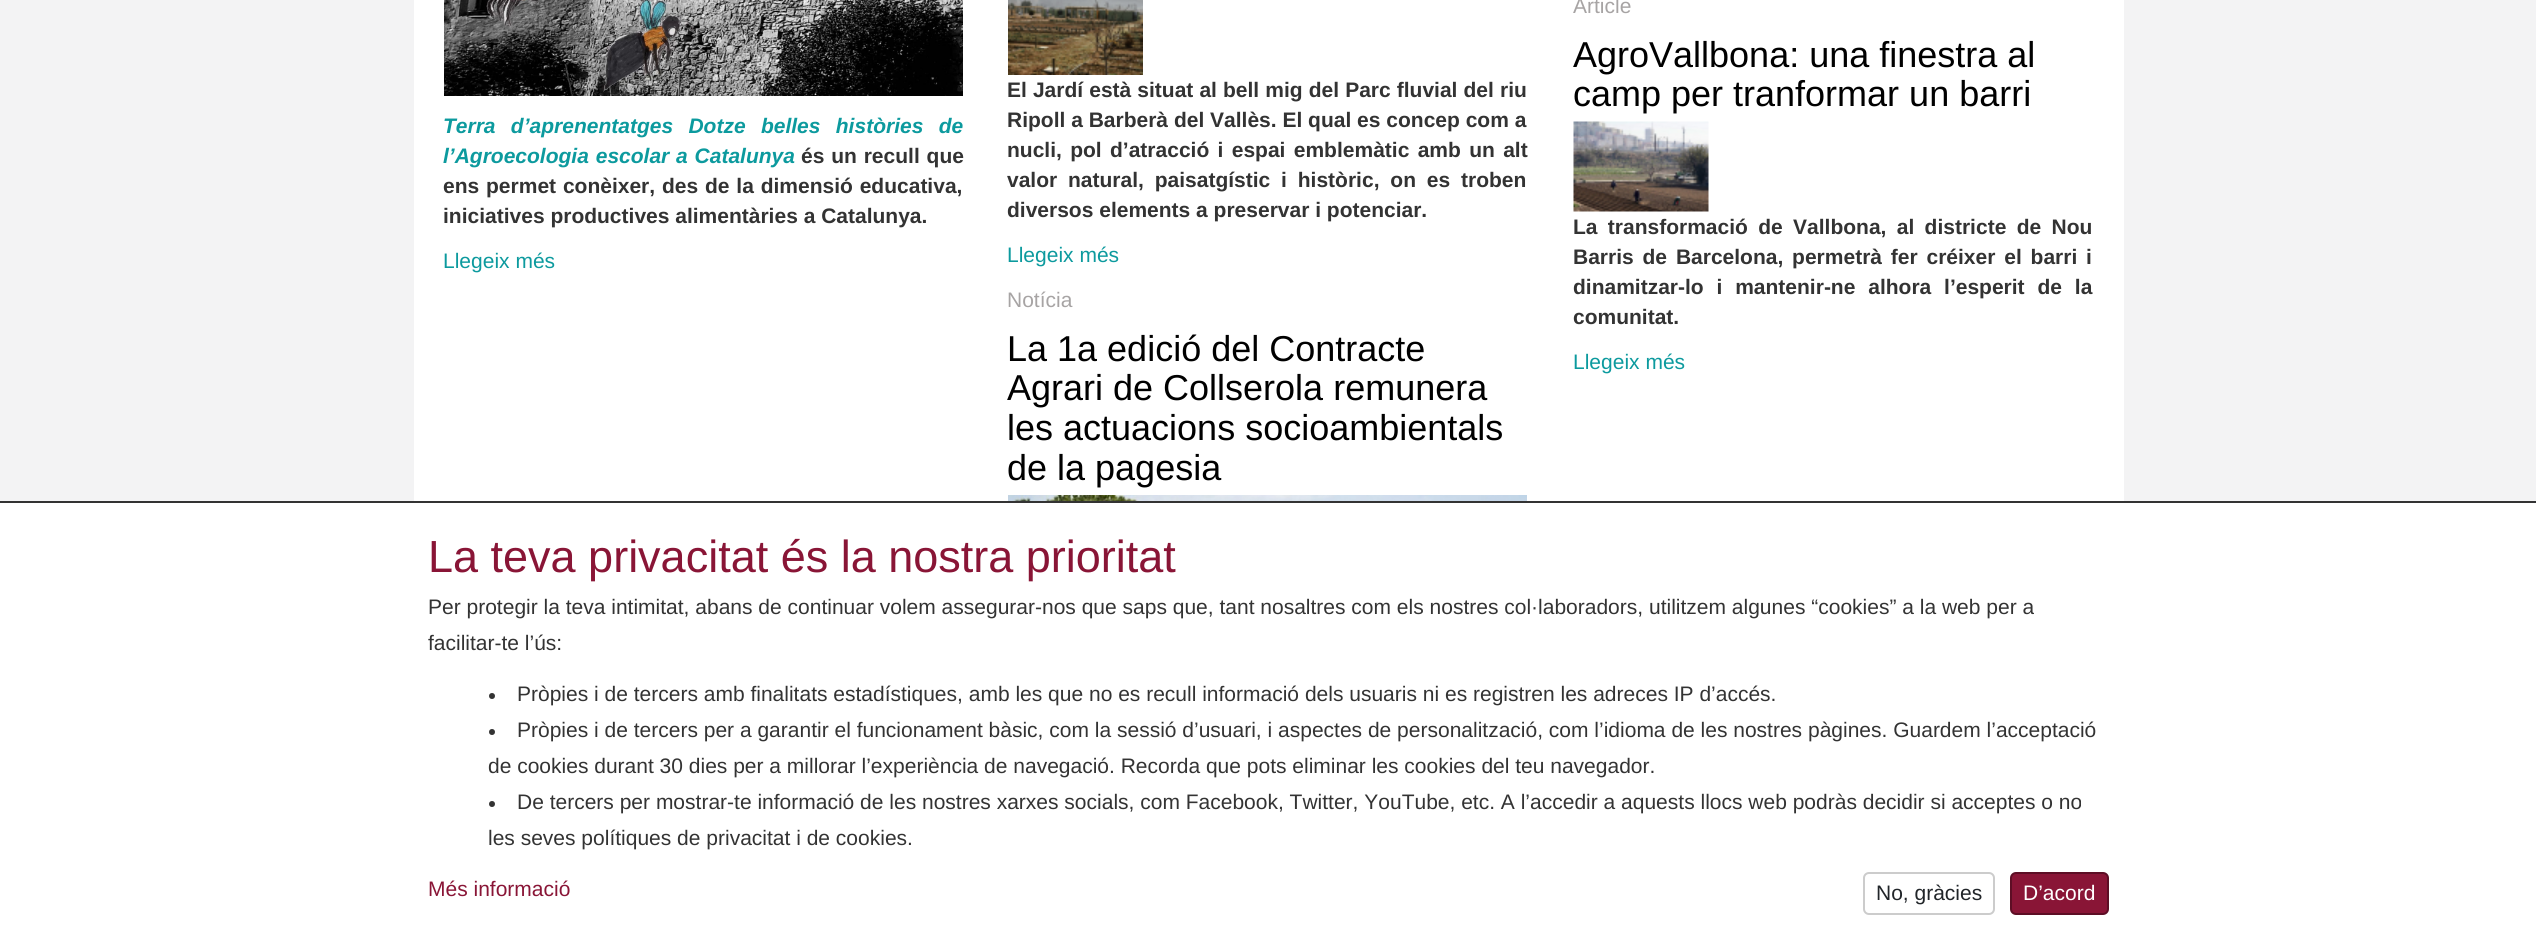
#include <cairo.h>
#include <math.h>
#include <stddef.h>


static void rgb(cairo_t *cr, int r, int g, int b)
{
	cairo_set_source_rgb(cr, r / 255.0, g / 255.0, b / 255.0);
}

static void face(cairo_t *cr, const char *family, double size, int italic, int bold)
{
	cairo_select_font_face(cr, family, italic ? CAIRO_FONT_SLANT_ITALIC : CAIRO_FONT_SLANT_NORMAL,
		bold ? CAIRO_FONT_WEIGHT_BOLD : CAIRO_FONT_WEIGHT_NORMAL);
	cairo_set_font_size(cr, size);
}

static void label(cairo_t *cr, double x, double y, const char *s)
{
	cairo_move_to(cr, x, y);
	cairo_show_text(cr, s);
}

static void tracked(cairo_t *cr, double x, double y, const char *s, double letter, double word)
{
	cairo_move_to(cr, x, y);
	while (*s) {
		char ch[5] = {0};
		int n = 0;
		do ch[n++] = *s++; while ((*s & 0xC0) == 0x80);
		cairo_show_text(cr, ch);
		cairo_rel_move_to(cr, letter + word * (*ch == ' '), 0);
	}
}

static void rect(cairo_t *cr, double x, double y, double w, double h)
{
	cairo_rectangle(cr, x, y, w, h);
	cairo_fill(cr);
}

static void rrect(cairo_t *cr, double x, double y, double w, double h, double r)
{
	cairo_new_sub_path(cr);
	cairo_arc(cr, x + w - r, y + h - r, r, 0, M_PI / 2);
	cairo_arc(cr, x + r, y + h - r, r, M_PI / 2, M_PI);
	cairo_arc(cr, x + r, y + r, r, M_PI, 1.5 * M_PI);
	cairo_arc(cr, x + w - r, y + r, r, 1.5 * M_PI, 2 * M_PI);
	cairo_close_path(cr);
}

static void image(cairo_t *cr, const char *path, double x, double y, double w, double h)
{
	cairo_surface_t *image = cairo_image_surface_create_from_png(path);
	cairo_save(cr);
	cairo_set_source_surface(cr, image, x, y);
	cairo_rectangle(cr, x, y, w, h);
	cairo_fill(cr);
	cairo_restore(cr);
	cairo_surface_destroy(image);
}

static void draw(cairo_t *cr) {
	rgb(cr, 243, 243, 244);
	cairo_paint(cr);
	rgb(cr, 255, 255, 255);
	rect(cr, 414, 0, 1710, 501);
	image(cr, "image0.png", 444, 0, 519, 96);
	face(cr, "Liberation Sans", 21, 1, 1);
	rgb(cr, 12, 154, 158);
	tracked(cr, 443, 133, "Terra d’aprenentatges Dotze belles històries de", 0, 9.5);
	tracked(cr, 443, 163, "l’Agroecologia escolar a Catalunya", 0, 1);
	face(cr, "Liberation Sans", 21, 0, 1);
	rgb(cr, 51, 51, 51);
	tracked(cr, 801, 163, "és un recull que", 0, 1);
	tracked(cr, 443, 193, "ens permet conèixer, des de la dimensió educativa,", 0, 1);
	label(cr, 443, 223, "iniciatives productives alimentàries a Catalunya.");
	face(cr, "Liberation Sans", 21, 0, 0);
	rgb(cr, 12, 154, 158);
	label(cr, 443, 268, "Llegeix més");
	image(cr, "image1.png", 1008, 0, 135, 75);
	face(cr, "Liberation Sans", 21, 0, 1);
	rgb(cr, 51, 51, 51);
	tracked(cr, 1007, 97, "El Jardí està situat al bell mig del Parc fluvial del riu", 0, 0.25);
	label(cr, 1007, 127, "Ripoll a Barberà del Vallès. El qual es concep com a");
	tracked(cr, 1007, 157, "nucli, pol d’atracció i espai emblemàtic amb un alt", 0, 2.5);
	tracked(cr, 1007, 187, "valor natural, paisatgístic i històric, on es troben", 0, 5);
	label(cr, 1007, 217, "diversos elements a preservar i potenciar.");
	face(cr, "Liberation Sans", 21, 0, 0);
	rgb(cr, 12, 154, 158);
	label(cr, 1007, 262, "Llegeix més");
	rgb(cr, 167, 164, 164);
	label(cr, 1573, 13, "Article");
	face(cr, "Liberation Sans", 36, 0, 0);
	rgb(cr, 0, 0, 0);
	label(cr, 1573, 67, "AgroVallbona: una finestra al");
	label(cr, 1573, 106, "camp per tranformar un barri");
	image(cr, "image2.png", 1573, 121, 136, 91);
	face(cr, "Liberation Sans", 21, 0, 1);
	rgb(cr, 51, 51, 51);
	tracked(cr, 1573, 234, "La transformació de Vallbona, al districte de Nou", 0, 4.5);
	tracked(cr, 1573, 264, "Barris de Barcelona, permetrà fer créixer el barri i", 0, 3);
	tracked(cr, 1573, 294, "dinamitzar-lo i mantenir-ne alhora l’esperit de la", 0, 7);
	label(cr, 1573, 324, "comunitat.");
	face(cr, "Liberation Sans", 21, 0, 0);
	rgb(cr, 12, 154, 158);
	label(cr, 1573, 369, "Llegeix més");
	rgb(cr, 167, 164, 164);
	label(cr, 1007, 307, "Notícia");
	face(cr, "Liberation Sans", 36, 0, 0);
	rgb(cr, 0, 0, 0);
	label(cr, 1007, 361, "La 1a edició del Contracte");
	label(cr, 1007, 400, "Agrari de Collserola remunera");
	label(cr, 1007, 440, "les actuacions socioambientals");
	label(cr, 1007, 480, "de la pagesia");
	image(cr, "image3.png", 1008, 495, 519, 6);
	rgb(cr, 255, 255, 255);
	rect(cr, 0, 503, 2536, 427);
	rgb(cr, 51, 51, 51);
	rect(cr, 0, 501, 2536, 2);
	face(cr, "Liberation Sans", 45, 0, 0);
	rgb(cr, 137, 21, 54);
	label(cr, 428, 572, "La teva privacitat és la nostra prioritat");
	face(cr, "Liberation Sans", 21, 0, 0);
	rgb(cr, 51, 51, 51);
	label(cr, 428, 614, "Per protegir la teva intimitat, abans de continuar volem assegurar-nos que saps que, tant nosaltres com els nostres col·laboradors, utilitzem algunes “cookies” a la web per a");
	label(cr, 428, 650, "facilitar-te l’ús:");
	cairo_new_path(cr);
	cairo_arc(cr, 492, 696, 3, 0, 2 * M_PI);
	cairo_fill(cr);
	label(cr, 517, 701, "Pròpies i de tercers amb finalitats estadístiques, amb les que no es recull informació dels usuaris ni es registren les adreces IP d’accés.");
	cairo_new_path(cr);
	cairo_arc(cr, 492, 732, 3, 0, 2 * M_PI);
	cairo_fill(cr);
	label(cr, 517, 737, "Pròpies i de tercers per a garantir el funcionament bàsic, com la sessió d’usuari, i aspectes de personalització, com l’idioma de les nostres pàgines. Guardem l’acceptació");
	label(cr, 488, 773, "de cookies durant 30 dies per a millorar l’experiència de navegació. Recorda que pots eliminar les cookies del teu navegador.");
	cairo_new_path(cr);
	cairo_arc(cr, 492, 804, 3, 0, 2 * M_PI);
	cairo_fill(cr);
	label(cr, 517, 809, "De tercers per mostrar-te informació de les nostres xarxes socials, com Facebook, Twitter, YouTube, etc. A l’accedir a aquests llocs web podràs decidir si acceptes o no");
	label(cr, 488, 845, "les seves polítiques de privacitat i de cookies.");
	rgb(cr, 137, 21, 54);
	label(cr, 428, 896, "Més informació");
	rrect(cr, 1864, 873, 130, 41, 5);
	rgb(cr, 204, 204, 204);
	cairo_stroke(cr);
	rgb(cr, 33, 37, 41);
	label(cr, 1876, 900, "No, gràcies");
	rgb(cr, 137, 21, 54);
	rrect(cr, 2011, 873, 97, 41, 5);
	cairo_fill_preserve(cr);
	rgb(cr, 93, 14, 37);
	cairo_stroke(cr);
	rgb(cr, 255, 255, 255);
	label(cr, 2023, 900, "D’acord");
}

int main(void) {
	cairo_surface_t *surface = cairo_image_surface_create(CAIRO_FORMAT_RGB24, 2536, 930);
	cairo_t *cr = cairo_create(surface);
	cairo_font_options_t *options = cairo_font_options_create();
	cairo_font_options_set_hint_metrics(options, CAIRO_HINT_METRICS_OFF);
	cairo_font_options_set_hint_style(options, CAIRO_HINT_STYLE_NONE);
	cairo_set_font_options(cr, options);
	cairo_set_miter_limit(cr, 4);
	draw(cr);
	cairo_surface_write_to_png(surface, "render.png");
	cairo_font_options_destroy(options);
	cairo_destroy(cr);
	cairo_surface_destroy(surface);
	return 0;
}
